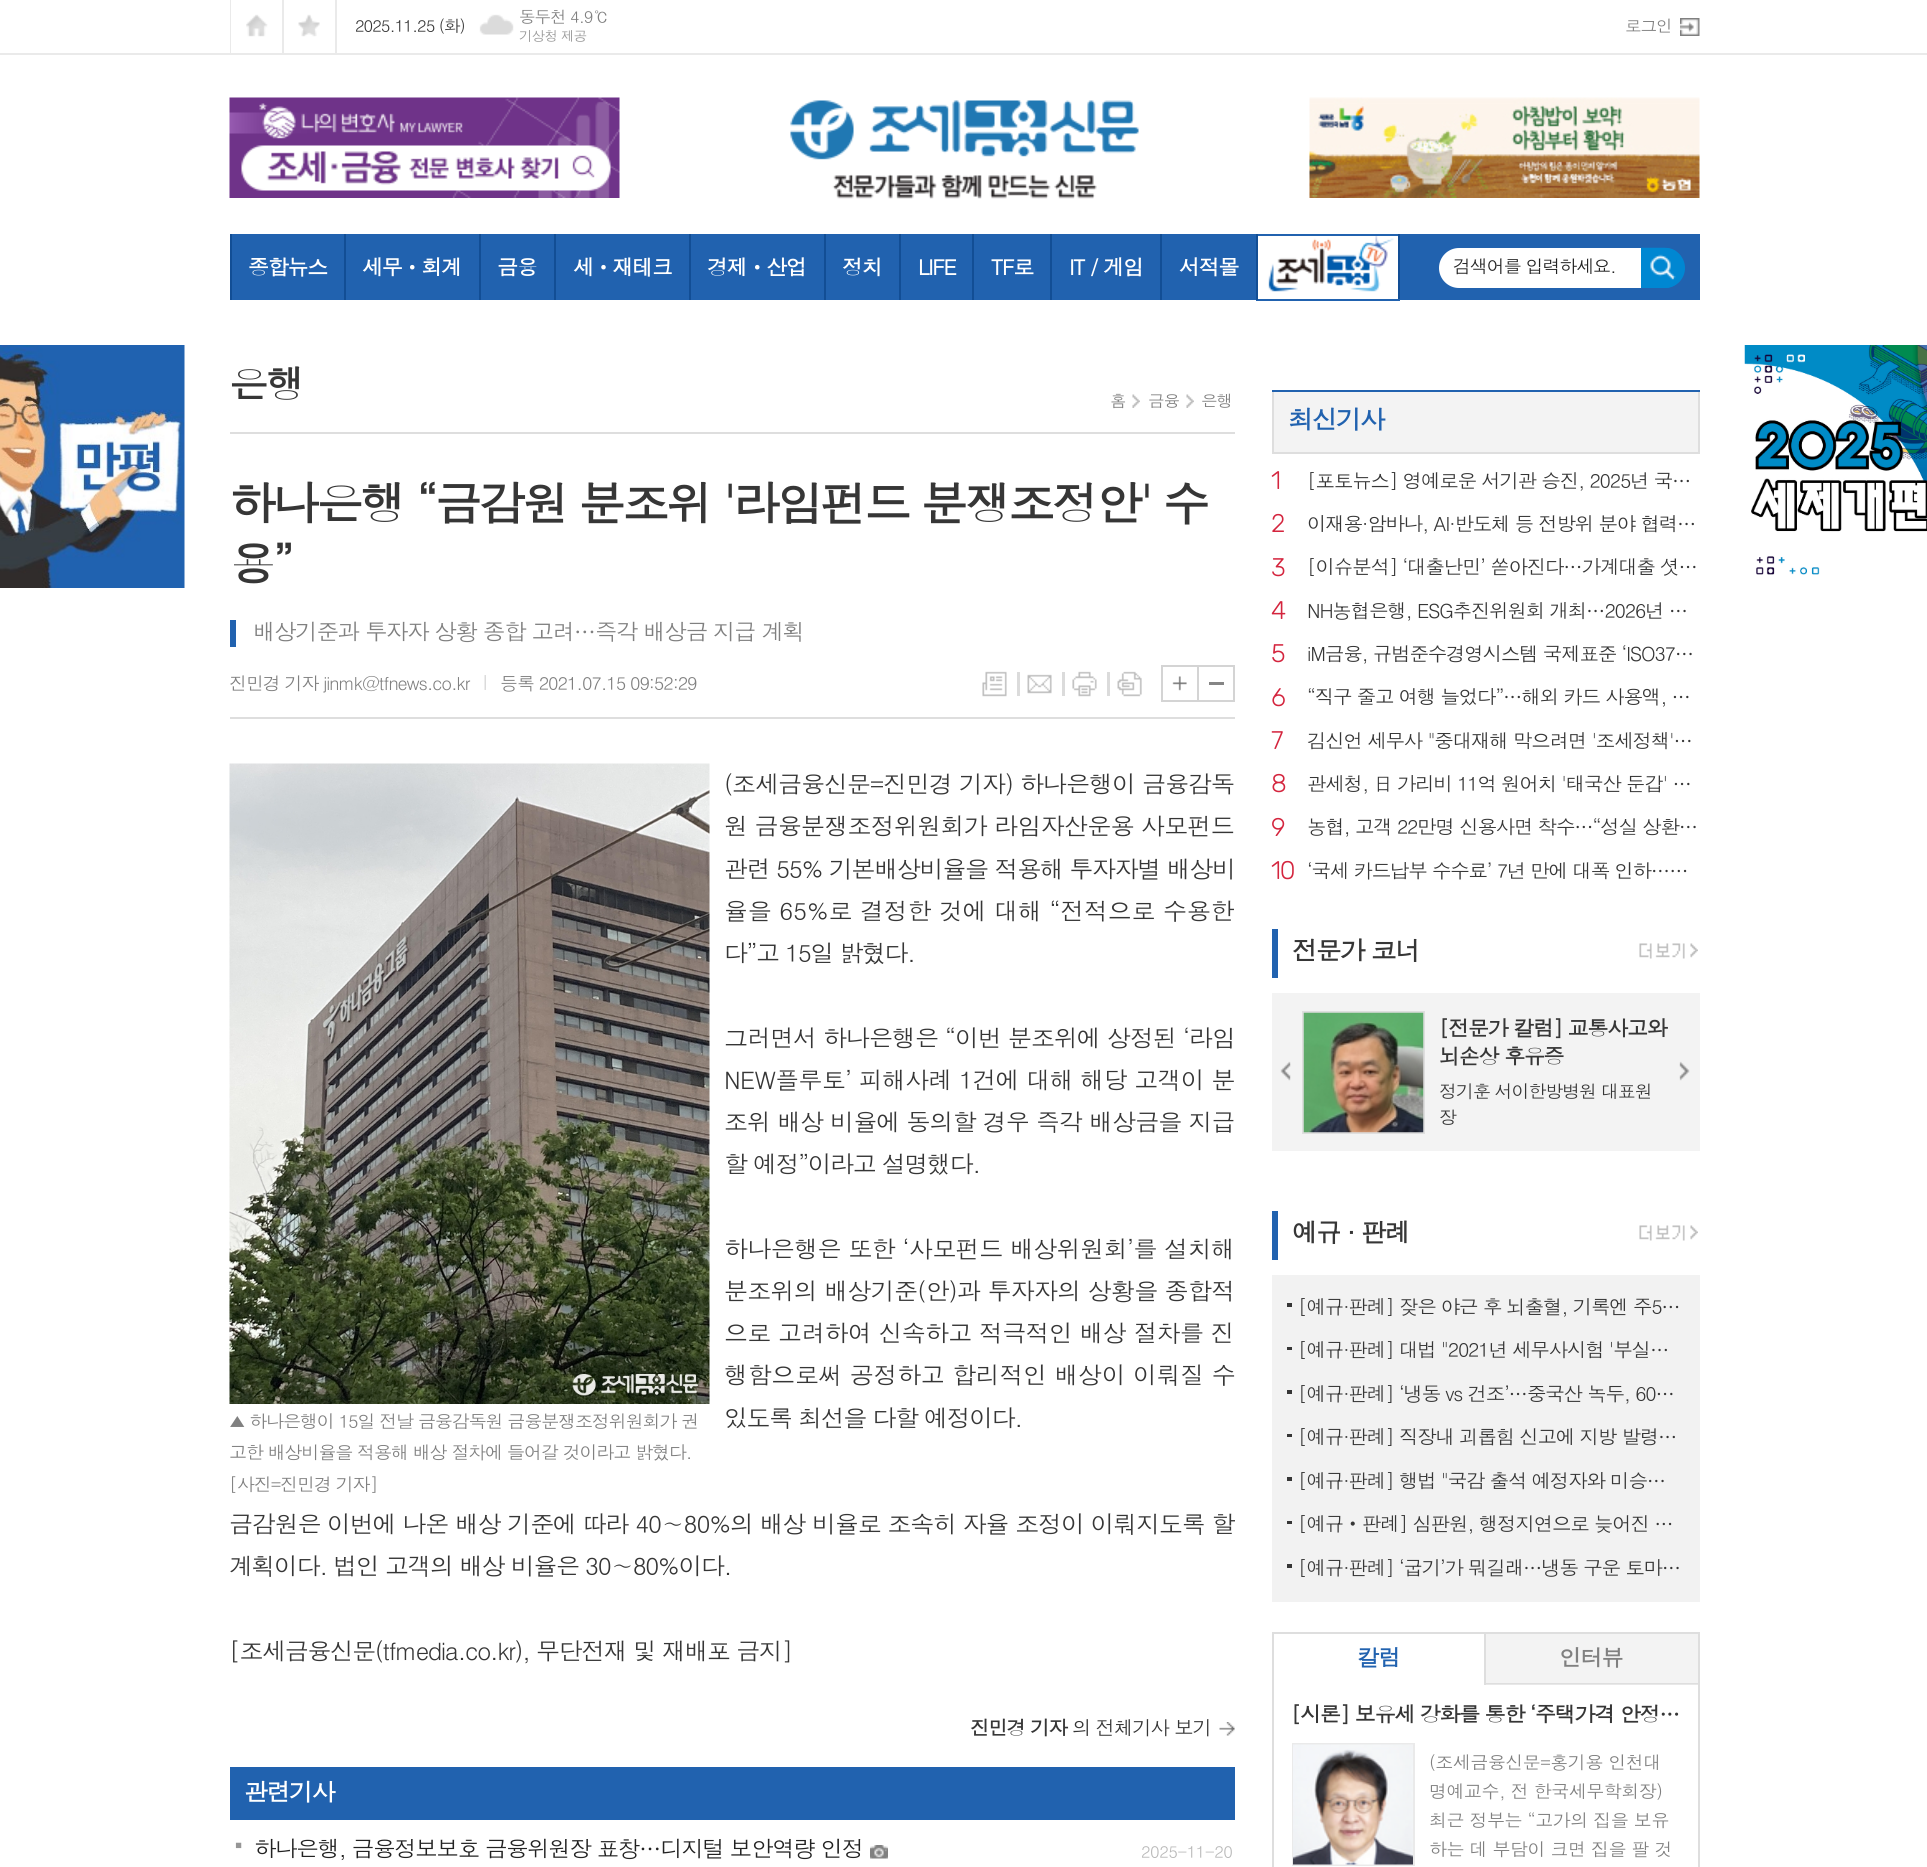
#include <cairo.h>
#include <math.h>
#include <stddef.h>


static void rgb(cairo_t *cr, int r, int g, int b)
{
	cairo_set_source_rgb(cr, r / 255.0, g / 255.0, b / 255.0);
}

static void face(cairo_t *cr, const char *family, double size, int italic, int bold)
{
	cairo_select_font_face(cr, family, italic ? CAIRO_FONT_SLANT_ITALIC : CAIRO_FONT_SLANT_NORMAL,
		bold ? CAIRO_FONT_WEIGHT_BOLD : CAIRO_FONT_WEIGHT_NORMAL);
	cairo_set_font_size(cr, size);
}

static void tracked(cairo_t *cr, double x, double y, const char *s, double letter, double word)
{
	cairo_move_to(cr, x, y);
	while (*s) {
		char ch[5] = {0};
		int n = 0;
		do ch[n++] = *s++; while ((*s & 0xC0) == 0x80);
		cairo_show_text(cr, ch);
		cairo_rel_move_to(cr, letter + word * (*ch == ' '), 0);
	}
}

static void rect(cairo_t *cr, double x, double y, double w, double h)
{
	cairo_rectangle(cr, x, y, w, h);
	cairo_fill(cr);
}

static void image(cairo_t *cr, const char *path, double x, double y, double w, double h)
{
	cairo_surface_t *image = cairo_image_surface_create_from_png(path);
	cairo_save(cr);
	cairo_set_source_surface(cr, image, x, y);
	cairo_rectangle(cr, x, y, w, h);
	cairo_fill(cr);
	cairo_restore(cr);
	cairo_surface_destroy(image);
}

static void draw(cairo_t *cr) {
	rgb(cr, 255, 255, 255);
	cairo_paint(cr);
	rgb(cr, 234, 234, 234);
	rect(cr, 0, 53, 1927, 2);
	rect(cr, 335, 0, 2, 53);
	rect(cr, 230, 0, 1, 53);
	image(cr, "image0.png", 246, 14, 22, 23);
	rect(cr, 282, 0, 2, 53);
	image(cr, "image1.png", 298, 14, 22, 23);
	face(cr, "Dotum", 16.5, 0, 0);
	rgb(cr, 54, 54, 54);
	tracked(cr, 355, 32, "2025.11.25 (화)", -1, 0);
	image(cr, "image2.png", 479, 14, 35, 21);
	rgb(cr, 128, 128, 128);
	tracked(cr, 519, 23, "동두천 4.9℃", -1, 0);
	face(cr, "Dotum", 13.5, 0, 0);
	rgb(cr, 150, 150, 150);
	tracked(cr, 519, 41, "기상청 제공", -0.75, 0);
	image(cr, "image3.png", 1680, 18, 20, 18);
	face(cr, "Dotum", 16.5, 0, 0);
	rgb(cr, 128, 128, 128);
	tracked(cr, 1625, 32, "로그인", -1, 0);
	image(cr, "image4.png", 229, 97, 391, 101);
	image(cr, "image5.png", 790, 100, 349, 99);
	image(cr, "image6.png", 1309, 97, 391, 101);
	rgb(cr, 33, 98, 175);
	rect(cr, 232, 234, 1468, 66);
	rgb(cr, 18, 78, 149);
	rect(cr, 344, 234, 2, 66);
	rect(cr, 230, 234, 2, 66);
	face(cr, "Dotum", 21, 0, 1);
	rgb(cr, 255, 255, 255);
	tracked(cr, 248, 275, "종합뉴스", -1.25, 0);
	rgb(cr, 18, 78, 149);
	rect(cr, 479, 234, 2, 66);
	rgb(cr, 255, 255, 255);
	tracked(cr, 362, 275, "세무ㆍ회계", -1.25, 0);
	rgb(cr, 18, 78, 149);
	rect(cr, 554, 234, 2, 66);
	rgb(cr, 255, 255, 255);
	tracked(cr, 497, 275, "금융", -1.25, 0);
	rgb(cr, 18, 78, 149);
	rect(cr, 689, 234, 2, 66);
	rgb(cr, 255, 255, 255);
	tracked(cr, 573, 275, "세ㆍ재테크", -1.25, 0);
	rgb(cr, 18, 78, 149);
	rect(cr, 824, 234, 2, 66);
	rgb(cr, 255, 255, 255);
	tracked(cr, 707, 275, "경제ㆍ산업", -1.25, 0);
	rgb(cr, 18, 78, 149);
	rect(cr, 899, 234, 2, 66);
	rgb(cr, 255, 255, 255);
	tracked(cr, 842, 275, "정치", -1.25, 0);
	rgb(cr, 18, 78, 149);
	rect(cr, 972, 234, 2, 66);
	rgb(cr, 255, 255, 255);
	tracked(cr, 918, 275, "LIFE", -1.25, 0);
	rgb(cr, 18, 78, 149);
	rect(cr, 1050, 234, 2, 66);
	rgb(cr, 255, 255, 255);
	tracked(cr, 991, 275, "TF로", -1.25, 0);
	rgb(cr, 18, 78, 149);
	rect(cr, 1160, 234, 2, 66);
	rgb(cr, 255, 255, 255);
	tracked(cr, 1069, 275, "IT / 게임", -1.25, 0);
	tracked(cr, 1179, 275, "서적몰", -1.25, 0);
	image(cr, "image7.png", 1258, 236, 140, 63);
	rgb(cr, 18, 78, 149);
	rect(cr, 1398, 234, 2, 66);
	rgb(cr, 33, 98, 175);
	rect(cr, 1256, 299, 144, 2);
	rgb(cr, 18, 78, 149);
	rect(cr, 1256, 234, 2, 66);
	rgb(cr, 255, 255, 255);
	cairo_new_path(cr);
	cairo_move_to(cr, 1459, 248);
	cairo_line_to(cr, 1641, 248);
	cairo_line_to(cr, 1641, 288);
	cairo_line_to(cr, 1459, 288);
	cairo_curve_to(cr, 1448, 288, 1439, 279, 1439, 268);
	cairo_curve_to(cr, 1439, 257, 1448, 248, 1459, 248);
	cairo_close_path(cr);
	cairo_fill(cr);
	rgb(cr, 0, 135, 210);
	cairo_new_path(cr);
	cairo_move_to(cr, 1641, 248);
	cairo_line_to(cr, 1665, 248);
	cairo_curve_to(cr, 1676, 248, 1685, 257, 1685, 268);
	cairo_curve_to(cr, 1685, 279, 1676, 288, 1665, 288);
	cairo_line_to(cr, 1641, 288);
	cairo_close_path(cr);
	cairo_fill(cr);
	image(cr, "image8.png", 1641, 247, 40, 41);
	face(cr, "Dotum", 18, 0, 0);
	rgb(cr, 34, 34, 34);
	tracked(cr, 1453, 273, "검색어를 입력하세요.", -1.1, 0);
	image(cr, "image9.png", 0, 345, 185, 243);
	image(cr, "image10.png", 1744, 345, 183, 230);
	rgb(cr, 222, 222, 222);
	rect(cr, 230, 432, 1005, 2);
	face(cr, "Dotum", 39, 0, 1);
	rgb(cr, 54, 54, 54);
	tracked(cr, 229, 399, "은행", -2, 0);
	face(cr, "Dotum", 16.5, 0, 0);
	rgb(cr, 128, 128, 128);
	tracked(cr, 1110, 407, "홈", -1, 0);
	image(cr, "image11.png", 1132, 394, 8, 14);
	tracked(cr, 1148, 407, "금융", -1, 0);
	image(cr, "image11.png", 1186, 394, 8, 14);
	tracked(cr, 1201, 407, "은행", -1, 0);
	face(cr, "Dotum", 46.5, 0, 1);
	rgb(cr, 54, 54, 54);
	tracked(cr, 229, 521, "하나은행 “금감원 분조위 '라임펀드 분쟁조정안' 수", -2.8, 0);
	tracked(cr, 229, 581, "용”", -2.8, 0);
	rgb(cr, 33, 98, 175);
	rect(cr, 230, 620, 6, 27);
	face(cr, "Dotum", 22.5, 0, 0);
	rgb(cr, 128, 128, 128);
	tracked(cr, 253, 640, "배상기준과 투자자 상황 종합 고려…즉각 배상금 지급 계획", -1.35, 0);
	rgb(cr, 222, 222, 222);
	rect(cr, 230, 717, 1005, 2);
	face(cr, "Dotum", 18, 0, 0);
	rgb(cr, 128, 128, 128);
	tracked(cr, 229, 690, "진민경 기자 jinmk@tfnews.co.kr", -1.1, 0);
	image(cr, "image12.png", 484, 675, 2, 15);
	tracked(cr, 500, 690, "등록 2021.07.15 09:52:29", -1.1, 0);
	image(cr, "image13.png", 982, 671, 25, 26);
	rgb(cr, 219, 219, 219);
	rect(cr, 1017, 672, 3, 24);
	image(cr, "image14.png", 1027, 674, 25, 20);
	rect(cr, 1062, 672, 3, 24);
	image(cr, "image15.png", 1072, 671, 25, 26);
	rect(cr, 1107, 672, 3, 24);
	image(cr, "image16.png", 1117, 671, 25, 26);
	image(cr, "image17.png", 1172, 676, 15, 15);
	cairo_rectangle(cr, 1162, 666, 36, 35);
	rgb(cr, 212, 212, 212);
	cairo_stroke(cr);
	rgb(cr, 133, 133, 133);
	rect(cr, 1209, 682, 15, 3);
	cairo_rectangle(cr, 1198, 666, 36, 35);
	rgb(cr, 212, 212, 212);
	cairo_stroke(cr);
	face(cr, "Dotum", 24, 0, 0);
	rgb(cr, 54, 54, 54);
	tracked(cr, 724, 793, "(조세금융신문=진민경 기자) 하나은행이 금융감독", -1, 0);
	tracked(cr, 724, 835, "원 금융분쟁조정위원회가 라임자산운용 사모펀드", -0.75, 0);
	tracked(cr, 724, 878, "관련 55% 기본배상비율을 적용해 투자자별 배상비", -1.3, 0);
	tracked(cr, 724, 920, "율을 65%로 결정한 것에 대해 “전적으로 수용한", -0.25, 0);
	tracked(cr, 724, 962, "다”고 15일 밝혔다.", -1.45, 0);
	tracked(cr, 724, 1047, "그러면서 하나은행은 “이번 분조위에 상정된 ‘라임", -1, 0);
	tracked(cr, 724, 1089, "NEW플루토’ 피해사례 1건에 대해 해당 고객이 분", -0.7, 0);
	tracked(cr, 724, 1131, "조위 배상 비율에 동의할 경우 즉각 배상금을 지급", -0.95, 0);
	tracked(cr, 724, 1173, "할 예정”이라고 설명했다.", -1.45, 0);
	tracked(cr, 724, 1258, "하나은행은 또한 ‘사모펀드 배상위원회’를 설치해", -0.6, 0);
	tracked(cr, 724, 1300, "분조위의 배상기준(안)과 투자자의 상황을 종합적", -0.75, 0);
	tracked(cr, 724, 1342, "으로 고려하여 신속하고 적극적인 배상 절차를 진", -0.7, 0);
	tracked(cr, 724, 1384, "행함으로써 공정하고 합리적인 배상이 이뤄질 수", -0.35, 0);
	tracked(cr, 724, 1427, "있도록 최선을 다할 예정이다.", -1.45, 0);
	image(cr, "image18.png", 229, 763, 481, 641);
	face(cr, "Dotum", 18, 0, 0);
	rgb(cr, 128, 128, 128);
	tracked(cr, 229, 1428, "▲ 하나은행이 15일 전날 금융감독원 금융분쟁조정위원회가 권", -1.1, 0);
	tracked(cr, 229, 1459, "고한 배상비율을 적용해 배상 절차에 들어갈 것이라고 밝혔다.", -1.1, 0);
	tracked(cr, 229, 1491, "[사진=진민경 기자]", -1.1, 0);
	face(cr, "Dotum", 24, 0, 0);
	rgb(cr, 54, 54, 54);
	tracked(cr, 229, 1533, "금감원은 이번에 나온 배상 기준에 따라 40∼80%의 배상 비율로 조속히 자율 조정이 이뤄지도록 할", -1.18, 0);
	tracked(cr, 229, 1575, "계획이다. 법인 고객의 배상 비율은 30∼80%이다.", -1.45, 0);
	tracked(cr, 229, 1660, "[조세금융신문(tfmedia.co.kr), 무단전재 및 재배포 금지]", -1.45, 0);
	face(cr, "Dotum", 19.5, 0, 1);
	tracked(cr, 970, 1735, "진민경 기자", -1.2, 0);
	face(cr, "Dotum", 19.5, 0, 0);
	tracked(cr, 1072, 1735, "의 전체기사 보기", -1.2, 0);
	image(cr, "image19.png", 1219, 1722, 16, 14);
	rgb(cr, 33, 98, 175);
	rect(cr, 230, 1767, 1005, 53);
	face(cr, "Dotum", 24, 0, 1);
	rgb(cr, 255, 255, 255);
	tracked(cr, 244, 1801, "관련기사", -1.45, 0);
	face(cr, "Dotum", 60, 0, 0);
	rgb(cr, 150, 150, 150);
	tracked(cr, 229, 1867, "·", -1.2, 0);
	image(cr, "image20.png", 870, 1845, 18, 14);
	face(cr, "Dotum", 22.5, 0, 0);
	rgb(cr, 34, 34, 34);
	tracked(cr, 254, 1857, "하나은행, 금융정보보호 금융위원장 표창…디지털 보안역량 인정", -1.35, 0);
	face(cr, "Dotum", 16.5, 0, 0);
	rgb(cr, 184, 184, 184);
	tracked(cr, 1141, 1858, "2025-11-20", -0.5, 0);
	rgb(cr, 243, 243, 243);
	rect(cr, 1274, 392, 424, 60);
	rgb(cr, 222, 222, 222);
	rect(cr, 1698, 390, 2, 63);
	rect(cr, 1272, 452, 428, 2);
	rect(cr, 1272, 390, 2, 63);
	rgb(cr, 33, 98, 175);
	rect(cr, 1272, 390, 428, 2);
	face(cr, "Dotum", 25.5, 0, 1);
	tracked(cr, 1288, 429, "최신기사", -1.5, 0);
	face(cr, "Rubik Light", 25.5, 0, 0);
	rgb(cr, 212, 37, 62);
	tracked(cr, 1271, 489, "1", -1.5, 0);
	face(cr, "Dotum", 19.5, 0, 0);
	rgb(cr, 54, 54, 54);
	tracked(cr, 1307, 488, "[포토뉴스] 영예로운 서기관 승진, 2025년 국…", -1.2, 0);
	face(cr, "Rubik Light", 25.5, 0, 0);
	rgb(cr, 212, 37, 62);
	tracked(cr, 1271, 532, "2", -1.5, 0);
	face(cr, "Dotum", 19.5, 0, 0);
	rgb(cr, 54, 54, 54);
	tracked(cr, 1307, 531, "이재용·암바나, AI·반도체 등 전방위 분야 협력…", -1.2, 0);
	face(cr, "Rubik Light", 25.5, 0, 0);
	rgb(cr, 212, 37, 62);
	tracked(cr, 1271, 576, "3", -1.5, 0);
	face(cr, "Dotum", 19.5, 0, 0);
	rgb(cr, 54, 54, 54);
	tracked(cr, 1307, 574, "[이슈분석] ‘대출난민’ 쏟아진다…가계대출 셧…", -1.2, 0);
	face(cr, "Rubik Light", 25.5, 0, 0);
	rgb(cr, 212, 37, 62);
	tracked(cr, 1271, 619, "4", -1.5, 0);
	face(cr, "Dotum", 19.5, 0, 0);
	rgb(cr, 54, 54, 54);
	tracked(cr, 1307, 618, "NH농협은행, ESG추진위원회 개최…2026년 …", -1.2, 0);
	face(cr, "Rubik Light", 25.5, 0, 0);
	rgb(cr, 212, 37, 62);
	tracked(cr, 1271, 662, "5", -1.5, 0);
	face(cr, "Dotum", 19.5, 0, 0);
	rgb(cr, 54, 54, 54);
	tracked(cr, 1307, 661, "iM금융, 규범준수경영시스템 국제표준 ‘ISO37…", -1.2, 0);
	face(cr, "Rubik Light", 25.5, 0, 0);
	rgb(cr, 212, 37, 62);
	tracked(cr, 1271, 706, "6", -1.5, 0);
	face(cr, "Dotum", 19.5, 0, 0);
	rgb(cr, 54, 54, 54);
	tracked(cr, 1307, 704, "“직구 줄고 여행 늘었다”…해외 카드 사용액, …", -1.2, 0);
	face(cr, "Rubik Light", 25.5, 0, 0);
	rgb(cr, 212, 37, 62);
	tracked(cr, 1271, 749, "7", -1.5, 0);
	face(cr, "Dotum", 19.5, 0, 0);
	rgb(cr, 54, 54, 54);
	tracked(cr, 1307, 748, "김신언 세무사 \"중대재해 막으려면 '조세정책'…", -1.2, 0);
	face(cr, "Rubik Light", 25.5, 0, 0);
	rgb(cr, 212, 37, 62);
	tracked(cr, 1271, 792, "8", -1.5, 0);
	face(cr, "Dotum", 19.5, 0, 0);
	rgb(cr, 54, 54, 54);
	tracked(cr, 1307, 791, "관세청, 日 가리비 11억 원어치 '태국산 둔갑' …", -1.2, 0);
	face(cr, "Rubik Light", 25.5, 0, 0);
	rgb(cr, 212, 37, 62);
	tracked(cr, 1271, 836, "9", -1.5, 0);
	face(cr, "Dotum", 19.5, 0, 0);
	rgb(cr, 54, 54, 54);
	tracked(cr, 1307, 834, "농협, 고객 22만명 신용사면 착수…“성실 상환…", -1.2, 0);
	face(cr, "Rubik Light", 25.5, 0, 0);
	rgb(cr, 212, 37, 62);
	tracked(cr, 1271, 879, "10", -1.5, 0);
	face(cr, "Dotum", 19.5, 0, 0);
	rgb(cr, 54, 54, 54);
	tracked(cr, 1307, 878, "‘국세 카드납부 수수료’ 7년 만에 대폭 인하……", -1.2, 0);
	rgb(cr, 33, 98, 175);
	rect(cr, 1272, 929, 6, 49);
	face(cr, "Dotum", 25.5, 0, 1);
	rgb(cr, 54, 54, 54);
	tracked(cr, 1292, 960, "전문가 코너", -1.5, 0);
	image(cr, "image21.png", 1639, 943, 59, 16);
	rgb(cr, 243, 243, 243);
	rect(cr, 1272, 993, 428, 158);
	cairo_rectangle(cr, 1303, 1012, 121, 121);
	rgb(cr, 222, 222, 222);
	cairo_stroke(cr);
	image(cr, "image22.png", 1303, 1012, 121, 121);
	face(cr, "Dotum", 21, 0, 1);
	rgb(cr, 54, 54, 54);
	tracked(cr, 1439, 1036, "[전문가 칼럼] 교통사고와", -1.25, 0);
	tracked(cr, 1439, 1064, "뇌손상 후유증", -1.25, 0);
	face(cr, "Dotum", 18, 0, 0);
	tracked(cr, 1439, 1098, "정기훈 서이한방병원 대표원", -1.1, 0);
	tracked(cr, 1439, 1124, "장", -1.1, 0);
	image(cr, "image23.png", 1280, 1061, 11, 20);
	image(cr, "image24.png", 1679, 1061, 11, 20);
	rgb(cr, 33, 98, 175);
	rect(cr, 1272, 1211, 6, 49);
	face(cr, "Dotum", 25.5, 0, 1);
	rgb(cr, 54, 54, 54);
	tracked(cr, 1292, 1242, "예규 · 판례", -1.5, 0);
	image(cr, "image21.png", 1639, 1225, 59, 16);
	rgb(cr, 242, 242, 242);
	rect(cr, 1272, 1275, 428, 327);
	rgb(cr, 54, 54, 54);
	rect(cr, 1287, 1303, 5, 4);
	face(cr, "Dotum", 19.5, 0, 0);
	tracked(cr, 1298, 1314, "[예규·판례] 잦은 야근 후 뇌출혈, 기록엔 주5…", -1.2, 0);
	rect(cr, 1287, 1347, 5, 3);
	tracked(cr, 1298, 1357, "[예규·판례] 대법 \"2021년 세무사시험 '부실…", -1.2, 0);
	rect(cr, 1287, 1390, 5, 4);
	tracked(cr, 1298, 1401, "[예규·판례] ‘냉동 vs 건조’…중국산 녹두, 60…", -1.2, 0);
	rect(cr, 1287, 1434, 5, 3);
	tracked(cr, 1298, 1444, "[예규·판례] 직장내 괴롭힘 신고에 지방 발령…", -1.2, 0);
	rect(cr, 1287, 1477, 5, 4);
	tracked(cr, 1298, 1488, "[예규·판례] 행법 \"국감 출석 예정자와 미승…", -1.2, 0);
	rect(cr, 1287, 1521, 5, 3);
	tracked(cr, 1298, 1531, "[예규", -1.2, 0);
	face(cr, "Noto Sans CJK KR", 19.5, 0, 0);
	tracked(cr, 1343, 1531, "‧", -1.2, 0);
	face(cr, "Dotum", 19.5, 0, 0);
	tracked(cr, 1362, 1531, "판례] 심판원, 행정지연으로 늦어진 …", -1.2, 0);
	rect(cr, 1287, 1564, 5, 4);
	tracked(cr, 1298, 1575, "[예규·판례] ‘굽기’가 뭐길래…냉동 구운 토마…", -1.2, 0);
	rgb(cr, 222, 222, 222);
	rect(cr, 1272, 1632, 428, 2);
	rect(cr, 1484, 1632, 2, 53);
	rect(cr, 1272, 1632, 2, 53);
	face(cr, "Dotum", 22.5, 0, 1);
	rgb(cr, 33, 98, 175);
	tracked(cr, 1357, 1666, "칼럼", -1.35, 0);
	rgb(cr, 243, 243, 243);
	rect(cr, 1486, 1634, 212, 51);
	image(cr, "image25.png", 1486, 1683, 212, 2);
	rgb(cr, 222, 222, 222);
	rect(cr, 1698, 1632, 2, 53);
	rgb(cr, 128, 128, 128);
	tracked(cr, 1559, 1666, "인터뷰", -1.35, 0);
	rgb(cr, 222, 222, 222);
	rect(cr, 1698, 1685, 2, 182);
	rect(cr, 1272, 1685, 2, 182);
	face(cr, "Dotum", 21, 0, 1);
	rgb(cr, 54, 54, 54);
	tracked(cr, 1291, 1722, "[시론] 보유세 강화를 통한 ‘주택가격 안정…", -1.25, 0);
	cairo_rectangle(cr, 1293, 1744, 121, 121);
	rgb(cr, 234, 234, 234);
	cairo_stroke(cr);
	image(cr, "image26.png", 1293, 1744, 120, 121);
	face(cr, "Dotum", 18, 0, 0);
	rgb(cr, 128, 128, 128);
	tracked(cr, 1429, 1769, "(조세금융신문=홍기용 인천대", -0.5, 0);
	tracked(cr, 1429, 1798, "명예교수, 전 한국세무학회장)", -0.5, 0);
	tracked(cr, 1429, 1827, "최근 정부는 “고가의 집을 보유", -0.5, 0);
	tracked(cr, 1429, 1856, "하는 데 부담이 크면 집을 팔 것", -0.5, 0);
}

int main(void) {
	cairo_surface_t *surface = cairo_image_surface_create(CAIRO_FORMAT_RGB24, 1927, 1867);
	cairo_t *cr = cairo_create(surface);
	cairo_font_options_t *options = cairo_font_options_create();
	cairo_font_options_set_hint_metrics(options, CAIRO_HINT_METRICS_OFF);
	cairo_font_options_set_hint_style(options, CAIRO_HINT_STYLE_NONE);
	cairo_set_font_options(cr, options);
	cairo_set_miter_limit(cr, 4);
	draw(cr);
	cairo_surface_write_to_png(surface, "render.png");
	cairo_font_options_destroy(options);
	cairo_destroy(cr);
	cairo_surface_destroy(surface);
	return 0;
}
